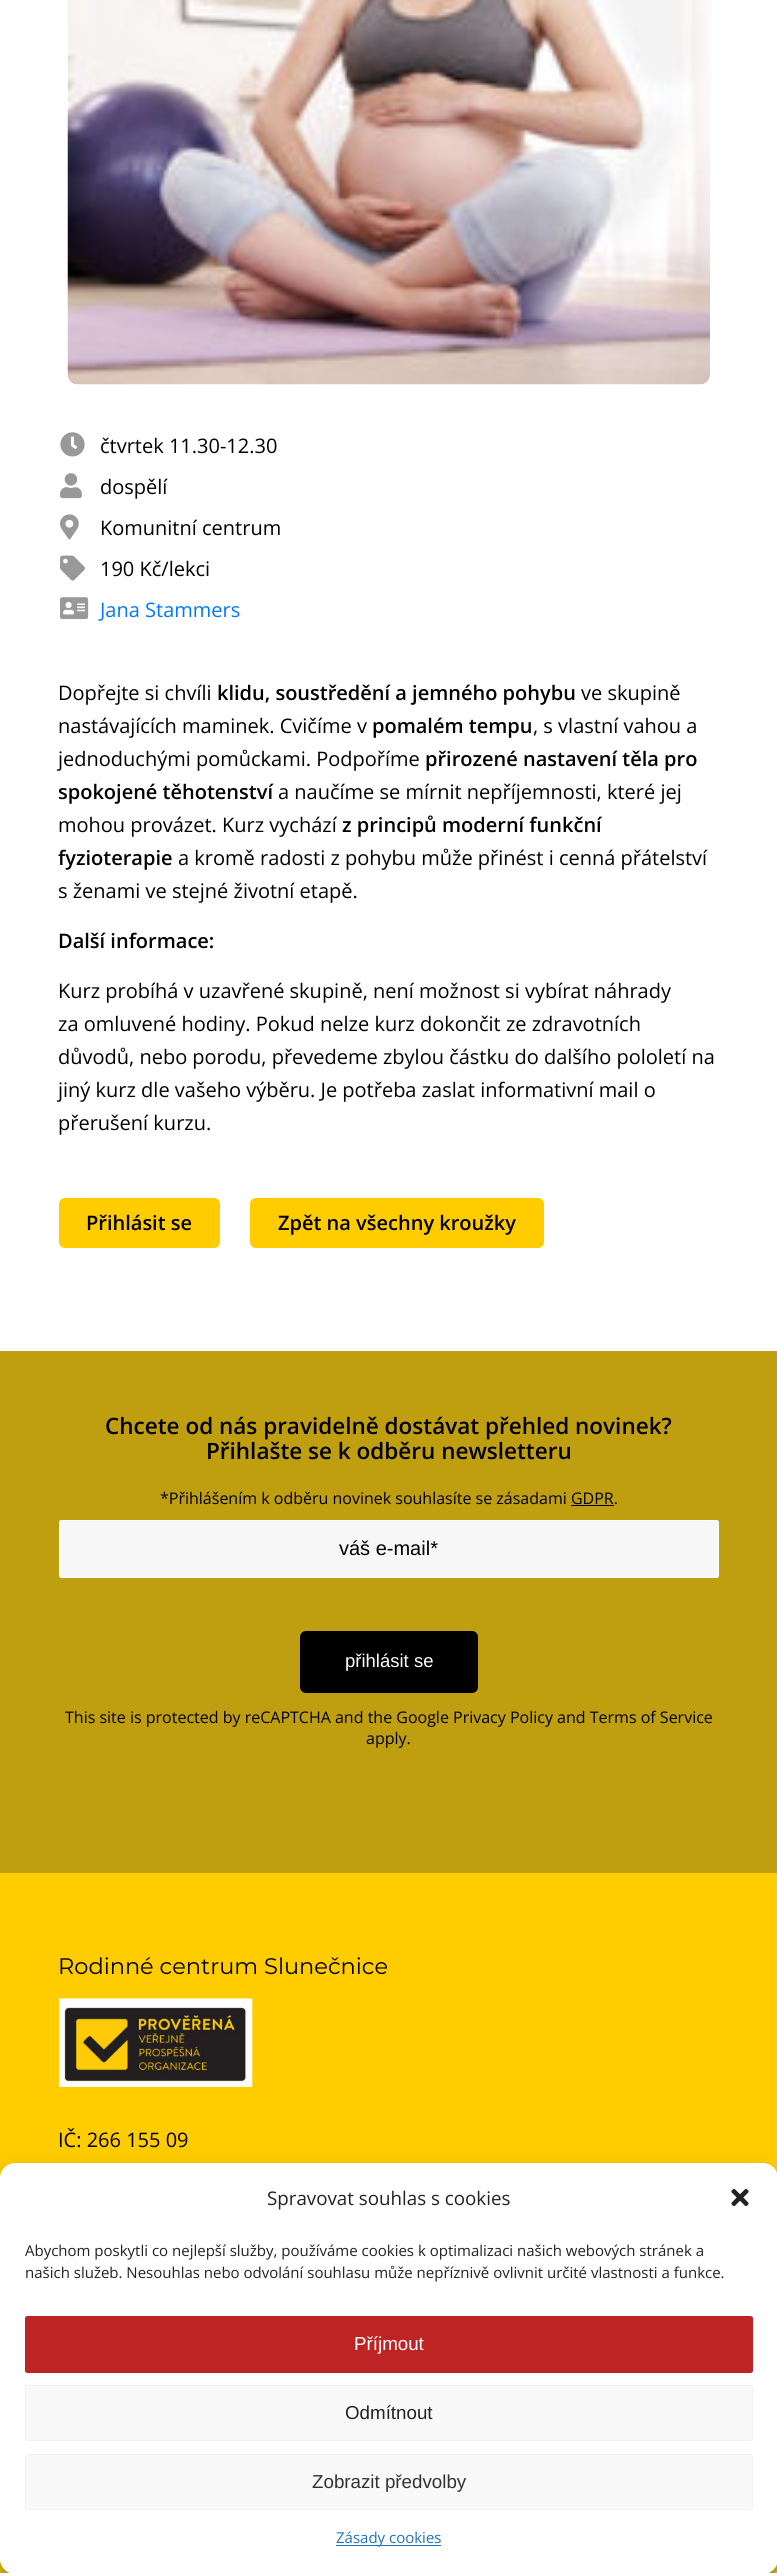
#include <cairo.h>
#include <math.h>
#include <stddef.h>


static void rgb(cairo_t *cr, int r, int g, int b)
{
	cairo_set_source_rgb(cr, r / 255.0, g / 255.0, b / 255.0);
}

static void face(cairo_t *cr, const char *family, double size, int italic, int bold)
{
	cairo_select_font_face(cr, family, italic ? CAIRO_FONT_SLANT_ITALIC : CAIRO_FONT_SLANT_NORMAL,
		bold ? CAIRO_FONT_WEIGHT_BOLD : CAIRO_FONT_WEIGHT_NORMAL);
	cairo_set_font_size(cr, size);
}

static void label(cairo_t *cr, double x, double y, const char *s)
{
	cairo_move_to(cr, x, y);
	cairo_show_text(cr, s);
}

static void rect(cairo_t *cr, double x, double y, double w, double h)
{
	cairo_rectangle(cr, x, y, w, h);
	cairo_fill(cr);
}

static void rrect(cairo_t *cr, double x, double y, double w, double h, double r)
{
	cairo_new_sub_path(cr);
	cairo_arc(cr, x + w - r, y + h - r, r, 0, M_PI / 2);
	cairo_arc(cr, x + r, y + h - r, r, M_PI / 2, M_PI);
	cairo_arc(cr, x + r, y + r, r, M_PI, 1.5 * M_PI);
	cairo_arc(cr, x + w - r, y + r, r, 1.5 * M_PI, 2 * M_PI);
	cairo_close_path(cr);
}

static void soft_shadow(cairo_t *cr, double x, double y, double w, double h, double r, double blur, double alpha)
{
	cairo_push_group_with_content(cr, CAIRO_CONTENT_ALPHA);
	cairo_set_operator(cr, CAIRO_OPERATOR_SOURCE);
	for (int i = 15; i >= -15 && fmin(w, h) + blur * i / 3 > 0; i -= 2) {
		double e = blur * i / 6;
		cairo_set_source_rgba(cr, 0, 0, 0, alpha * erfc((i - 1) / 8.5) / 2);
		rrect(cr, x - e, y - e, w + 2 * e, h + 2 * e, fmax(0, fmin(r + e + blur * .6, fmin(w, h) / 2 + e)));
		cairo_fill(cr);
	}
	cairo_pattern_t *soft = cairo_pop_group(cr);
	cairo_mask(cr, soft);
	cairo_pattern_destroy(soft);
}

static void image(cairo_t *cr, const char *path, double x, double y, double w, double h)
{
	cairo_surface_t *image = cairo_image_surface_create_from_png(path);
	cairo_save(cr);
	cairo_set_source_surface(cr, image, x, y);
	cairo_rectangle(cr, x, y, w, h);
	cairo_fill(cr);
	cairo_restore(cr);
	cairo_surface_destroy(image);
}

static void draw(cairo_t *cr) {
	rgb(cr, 255, 255, 255);
	cairo_paint(cr);
	image(cr, "image0.png", 67, 0, 643, 385);
	image(cr, "image1.png", 60, 432, 25, 25);
	face(cr, "Open Sans", 20, 0, 0);
	rgb(cr, 0, 0, 0);
	label(cr, 100, 453, "čtvrtek 11.30-12.30");
	image(cr, "image2.png", 60, 473, 22, 26);
	label(cr, 100, 494, "dospělí");
	image(cr, "image3.png", 60, 514, 19, 26);
	label(cr, 100, 535, "Komunitní centrum");
	image(cr, "image4.png", 60, 555, 25, 26);
	label(cr, 100, 576, "190 Kč/lekci");
	image(cr, "image5.png", 60, 597, 29, 23);
	rgb(cr, 0, 119, 255);
	label(cr, 100, 617, "Jana Stammers");
	rgb(cr, 0, 0, 0);
	label(cr, 58, 700, "Dopřejte si chvíli");
	face(cr, "Open Sans SemiBold", 20, 0, 0);
	label(cr, 217, 700, "klidu, soustředění a jemného pohybu");
	face(cr, "Open Sans", 20, 0, 0);
	label(cr, 581, 700, "ve skupině");
	label(cr, 58, 733, "nastávajících maminek. Cvičíme v");
	face(cr, "Open Sans SemiBold", 20, 0, 0);
	label(cr, 372, 733, "pomalém tempu");
	face(cr, "Open Sans", 20, 0, 0);
	label(cr, 533, 733, ", s vlastní vahou a");
	label(cr, 58, 766, "jednoduchými pomůckami. Podpoříme");
	face(cr, "Open Sans SemiBold", 20, 0, 0);
	label(cr, 425, 766, "přirozené nastavení těla pro");
	label(cr, 58, 799, "spokojené těhotenství");
	face(cr, "Open Sans", 20, 0, 0);
	label(cr, 278, 799, "a naučíme se mírnit nepříjemnosti, které jej");
	label(cr, 58, 832, "mohou provázet. Kurz vychází");
	face(cr, "Open Sans SemiBold", 20, 0, 0);
	label(cr, 342, 832, "z principů moderní funkční");
	label(cr, 58, 865, "fyzioterapie");
	face(cr, "Open Sans", 20, 0, 0);
	label(cr, 178, 865, "a kromě radosti z pohybu může přinést i cenná přátelství");
	label(cr, 58, 898, "s ženami ve stejné životní etapě.");
	face(cr, "Open Sans SemiBold", 20, 0, 0);
	label(cr, 58, 948, "Další informace:");
	face(cr, "Open Sans", 20, 0, 0);
	label(cr, 58, 998, "Kurz probíhá v uzavřené skupině, není možnost si vybírat náhrady");
	label(cr, 58, 1031, "za omluvené hodiny. Pokud nelze kurz dokončit ze zdravotních");
	label(cr, 58, 1064, "důvodů, nebo porodu, převedeme zbylou částku do dalšího pololetí na");
	label(cr, 58, 1097, "jiný kurz dle vašeho výběru. Je potřeba zaslat informativní mail o");
	label(cr, 58, 1130, "přerušení kurzu.");
	rgb(cr, 255, 204, 0);
	rrect(cr, 59, 1198, 161, 50, 6);
	cairo_fill(cr);
	face(cr, "Open Sans SemiBold", 20, 0, 0);
	rgb(cr, 0, 0, 0);
	label(cr, 86, 1230, "Přihlásit se");
	rgb(cr, 255, 204, 0);
	rrect(cr, 250, 1198, 294, 50, 6);
	cairo_fill(cr);
	rgb(cr, 0, 0, 0);
	label(cr, 278, 1230, "Zpět na všechny kroužky");
	rgb(cr, 191, 159, 15);
	rect(cr, 0, 1351, 777, 522);
	face(cr, "Open Sans SemiBold", 22.5, 0, 0);
	rgb(cr, 0, 0, 0);
	label(cr, 105, 1434, "Chcete od nás pravidelně dostávat přehled novinek?");
	label(cr, 206, 1459, "Přihlašte se k odběru newsletteru");
	face(cr, "Open Sans", 16, 0, 0);
	label(cr, 160, 1504, "*Přihlášením k odběru novinek souhlasíte se zásadami GDPR.");
	rect(cr, 571, 1505, 43, 1);
	rgb(cr, 247, 247, 247);
	rrect(cr, 59.5, 1520.5, 659, 57, 2);
	cairo_fill_preserve(cr);
	rgb(cr, 255, 255, 255);
	cairo_set_line_width(cr, 1);
	cairo_stroke(cr);
	face(cr, "Liberation Sans", 20, 0, 0);
	rgb(cr, 0, 0, 0);
	label(cr, 339, 1555, "váš e-mail*");
	rrect(cr, 300, 1631, 178, 62, 6);
	cairo_fill(cr);
	face(cr, "Liberation Sans", 18.5, 0, 0);
	rgb(cr, 255, 255, 255);
	label(cr, 345, 1667, "přihlásit se");
	face(cr, "Open Sans", 16, 0, 0);
	rgb(cr, 0, 0, 0);
	label(cr, 65, 1723, "This site is protected by reCAPTCHA and the Google Privacy Policy and Terms of Service");
	label(cr, 366, 1744, "apply.");
	rgb(cr, 255, 204, 0);
	rect(cr, 0, 1873, 777, 700);
	face(cr, "Montserrat Thin", 22.5, 0, 0);
	rgb(cr, 0, 0, 0);
	label(cr, 58, 1974, "Rodinné centrum Slunečnice");
	image(cr, "image6.png", 58, 1998, 195, 89);
	face(cr, "Open Sans", 20, 0, 0);
	label(cr, 58, 2147, "IČ: 266 155 09");
	rgb(cr, 0, 0, 0);
	soft_shadow(cr, 0, 2170, 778, 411, 15, 4, 0.23);
	soft_shadow(cr, 0, 2175, 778, 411, 15, 12.5, 0.19);
	rgb(cr, 255, 255, 255);
	rrect(cr, 0, 2163, 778, 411, 15);
	cairo_fill(cr);
	face(cr, "Open Sans", 18.75, 0, 0);
	rgb(cr, 34, 34, 34);
	label(cr, 267, 2205, "Spravovat souhlas s cookies");
	image(cr, "image7.png", 731, 2188, 18, 18);
	face(cr, "Open Sans", 15, 0, 0);
	label(cr, 25, 2256, "Abychom poskytli co nejlepší služby, používáme cookies k optimalizaci našich webových stránek a");
	label(cr, 25, 2278, "našich služeb. Nesouhlas nebo odvolání souhlasu může nepříznivě ovlivnit určité vlastnosti a funkce.");
	rgb(cr, 191, 36, 36);
	rrect(cr, 25.5, 2316.5, 727, 56, 2);
	cairo_fill_preserve(cr);
	cairo_stroke(cr);
	face(cr, "Liberation Sans", 18.75, 0, 0);
	rgb(cr, 255, 255, 255);
	label(cr, 354, 2350, "Příjmout");
	rgb(cr, 249, 249, 249);
	rrect(cr, 25.5, 2385.5, 727, 55, 2);
	cairo_fill_preserve(cr);
	rgb(cr, 242, 242, 242);
	cairo_stroke(cr);
	rgb(cr, 34, 34, 34);
	label(cr, 345, 2419, "Odmítnout");
	rgb(cr, 249, 249, 249);
	rrect(cr, 25.5, 2454.5, 727, 55, 2);
	cairo_fill_preserve(cr);
	rgb(cr, 242, 242, 242);
	cairo_stroke(cr);
	rgb(cr, 51, 51, 51);
	label(cr, 312, 2488, "Zobrazit předvolby");
	rgb(cr, 30, 115, 190);
	rect(cr, 336, 2545, 105, 1);
	face(cr, "Open Sans", 15, 0, 0);
	label(cr, 336, 2543, "Zásady cookies");
}

int main(void) {
	cairo_surface_t *surface = cairo_image_surface_create(CAIRO_FORMAT_RGB24, 777, 2573);
	cairo_t *cr = cairo_create(surface);
	cairo_font_options_t *options = cairo_font_options_create();
	cairo_font_options_set_hint_metrics(options, CAIRO_HINT_METRICS_OFF);
	cairo_font_options_set_hint_style(options, CAIRO_HINT_STYLE_NONE);
	cairo_set_font_options(cr, options);
	cairo_set_miter_limit(cr, 4);
	draw(cr);
	cairo_surface_write_to_png(surface, "render.png");
	cairo_font_options_destroy(options);
	cairo_destroy(cr);
	cairo_surface_destroy(surface);
	return 0;
}
